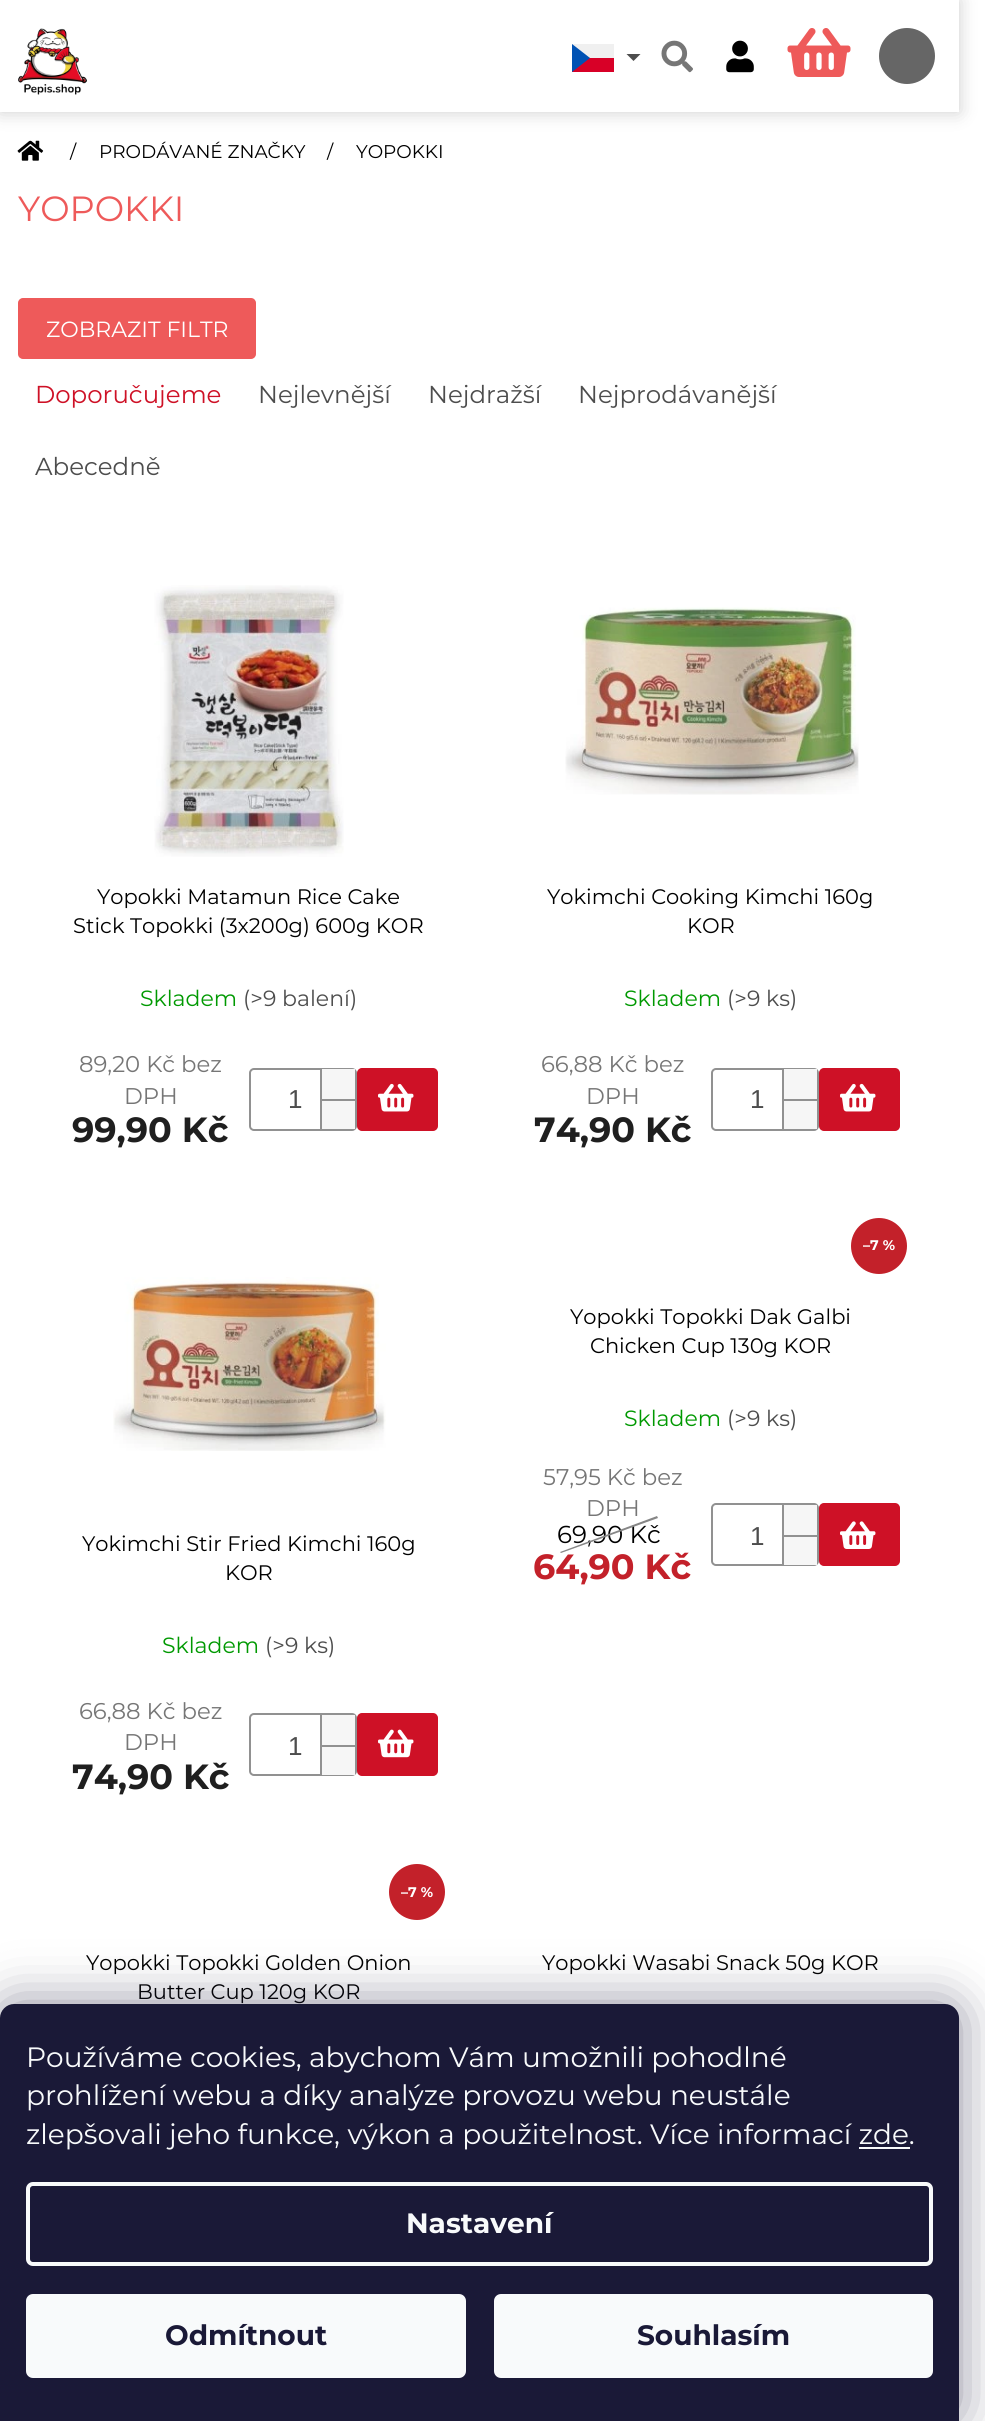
#include <cairo.h>
#include <math.h>
#include <stddef.h>


static void rgb(cairo_t *cr, int r, int g, int b)
{
	cairo_set_source_rgb(cr, r / 255.0, g / 255.0, b / 255.0);
}

static void face(cairo_t *cr, const char *family, double size, int italic, int bold)
{
	cairo_select_font_face(cr, family, italic ? CAIRO_FONT_SLANT_ITALIC : CAIRO_FONT_SLANT_NORMAL,
		bold ? CAIRO_FONT_WEIGHT_BOLD : CAIRO_FONT_WEIGHT_NORMAL);
	cairo_set_font_size(cr, size);
}

static void label(cairo_t *cr, double x, double y, const char *s)
{
	cairo_move_to(cr, x, y);
	cairo_show_text(cr, s);
}

static void rect(cairo_t *cr, double x, double y, double w, double h)
{
	cairo_rectangle(cr, x, y, w, h);
	cairo_fill(cr);
}

static void rrect(cairo_t *cr, double x, double y, double w, double h, double r)
{
	cairo_new_sub_path(cr);
	cairo_arc(cr, x + w - r, y + h - r, r, 0, M_PI / 2);
	cairo_arc(cr, x + r, y + h - r, r, M_PI / 2, M_PI);
	cairo_arc(cr, x + r, y + r, r, M_PI, 1.5 * M_PI);
	cairo_arc(cr, x + w - r, y + r, r, 1.5 * M_PI, 2 * M_PI);
	cairo_close_path(cr);
}

static void soft_shadow(cairo_t *cr, double x, double y, double w, double h, double r, double blur, double alpha)
{
	cairo_push_group_with_content(cr, CAIRO_CONTENT_ALPHA);
	cairo_set_operator(cr, CAIRO_OPERATOR_SOURCE);
	for (int i = 15; i >= -15 && fmin(w, h) + blur * i / 3 > 0; i -= 2) {
		double e = blur * i / 6;
		cairo_set_source_rgba(cr, 0, 0, 0, alpha * erfc((i - 1) / 8.5) / 2);
		rrect(cr, x - e, y - e, w + 2 * e, h + 2 * e, fmax(0, fmin(r + e + blur * .6, fmin(w, h) / 2 + e)));
		cairo_fill(cr);
	}
	cairo_pattern_t *soft = cairo_pop_group(cr);
	cairo_mask(cr, soft);
	cairo_pattern_destroy(soft);
}

static void image(cairo_t *cr, const char *path, double x, double y, double w, double h)
{
	cairo_surface_t *image = cairo_image_surface_create_from_png(path);
	cairo_save(cr);
	cairo_set_source_surface(cr, image, x, y);
	cairo_rectangle(cr, x, y, w, h);
	cairo_fill(cr);
	cairo_restore(cr);
	cairo_surface_destroy(image);
}

static void draw(cairo_t *cr) {
	rgb(cr, 255, 255, 255);
	cairo_paint(cr);
	cairo_save(cr);
	cairo_set_fill_rule(cr, CAIRO_FILL_RULE_EVEN_ODD);
	cairo_new_path(cr);
	cairo_move_to(cr, 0, 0);
	cairo_line_to(cr, 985, 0);
	cairo_line_to(cr, 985, 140);
	cairo_line_to(cr, 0, 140);
	cairo_close_path(cr);
	cairo_move_to(cr, 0, 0);
	cairo_line_to(cr, 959, 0);
	cairo_line_to(cr, 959, 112);
	cairo_line_to(cr, 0, 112);
	cairo_close_path(cr);
	cairo_clip(cr);
	rgb(cr, 0, 0, 0);
	soft_shadow(cr, 0, 0, 959, 112, 0, 9, 0.2);
	cairo_restore(cr);
	rgb(cr, 0, 82, 180);
	rect(cr, 572, 44, 18, 28);
	rgb(cr, 216, 0, 39);
	cairo_new_path(cr);
	cairo_move_to(cr, 614, 58);
	cairo_line_to(cr, 614, 72);
	cairo_line_to(cr, 572, 72);
	cairo_line_to(cr, 590, 58);
	cairo_close_path(cr);
	cairo_fill(cr);
	rgb(cr, 240, 240, 240);
	cairo_new_path(cr);
	cairo_move_to(cr, 614, 44);
	cairo_line_to(cr, 614, 58);
	cairo_line_to(cr, 590, 58);
	cairo_line_to(cr, 572, 44);
	cairo_close_path(cr);
	cairo_fill(cr);
	rgb(cr, 77, 77, 77);
	cairo_new_path(cr);
	cairo_move_to(cr, 626.5, 54);
	cairo_line_to(cr, 640.5, 54);
	cairo_line_to(cr, 633.5, 61);
	cairo_close_path(cr);
	cairo_fill(cr);
	image(cr, "image0.png", 661, 40, 32, 33);
	image(cr, "image1.png", 726, 40, 28, 33);
	rgb(cr, 102, 102, 102);
	cairo_arc(cr, 907, 56, 28, 0, 2 * M_PI);
	cairo_fill(cr);
	image(cr, "image2.png", 18, 28, 69, 67);
	image(cr, "image3.png", 787, 28, 64, 49);
	image(cr, "image4.png", 17, 140, 27, 21);
	face(cr, "Montserrat", 18.4, 0, 0);
	rgb(cr, 0, 0, 0);
	label(cr, 70, 158, "/");
	label(cr, 99, 158, "PRODÁVANÉ ZNAČKY");
	label(cr, 327, 158, "/");
	label(cr, 356, 158, "YOPOKKI");
	face(cr, "Montserrat", 35, 0, 0);
	rgb(cr, 238, 90, 90);
	label(cr, 18, 221, "YOPOKKI");
	rrect(cr, 19, 299, 236, 59, 4);
	cairo_fill_preserve(cr);
	cairo_stroke(cr);
	face(cr, "Montserrat", 22, 0, 0);
	rgb(cr, 255, 255, 255);
	label(cr, 46, 337, "ZOBRAZIT FILTR");
	face(cr, "Montserrat", 24.5, 0, 0);
	rgb(cr, 206, 17, 38);
	label(cr, 35, 403, "Doporučujeme");
	rgb(cr, 77, 77, 77);
	label(cr, 258, 403, "Nejlevnější");
	label(cr, 428, 403, "Nejdražší");
	label(cr, 578, 403, "Nejprodávanější");
	label(cr, 35, 475, "Abecedně");
	image(cr, "image5.png", 154, 585, 190, 272);
	face(cr, "Montserrat", 21, 0, 0);
	rgb(cr, 0, 0, 0);
	label(cr, 97, 904, "Yopokki Matamun Rice Cake");
	label(cr, 73, 933, "Stick Topokki (3x200g) 600g KOR");
	face(cr, "Montserrat", 22, 0, 0);
	rgb(cr, 0, 153, 1);
	label(cr, 140, 1006, "Skladem");
	rgb(cr, 77, 77, 77);
	label(cr, 243, 1006, "(>9 balení)");
	face(cr, "Montserrat", 22.75, 0, 0);
	rgb(cr, 118, 118, 118);
	label(cr, 79, 1072, "89,20 Kč bez");
	label(cr, 124, 1104, "DPH");
	face(cr, "Montserrat", 35, 0, 1);
	rgb(cr, 31, 31, 31);
	label(cr, 72, 1142, "99,90 Kč");
	rrect(cr, 250, 1069, 106, 61, 4);
	rgb(cr, 145, 145, 145);
	cairo_stroke(cr);
	face(cr, "Liberation Sans", 26, 0, 0);
	rgb(cr, 77, 77, 77);
	label(cr, 288, 1108, "1");
	rgb(cr, 246, 246, 246);
	rect(cr, 322, 1069, 33, 30);
	rgb(cr, 145, 145, 145);
	rect(cr, 320, 1069, 2, 30);
	rgb(cr, 246, 246, 246);
	rect(cr, 322, 1101, 33, 28);
	rgb(cr, 145, 145, 145);
	rect(cr, 320, 1099, 35, 2);
	rect(cr, 320, 1099, 2, 30);
	rgb(cr, 206, 17, 38);
	rrect(cr, 358, 1069, 79, 61, 4);
	cairo_fill_preserve(cr);
	cairo_stroke(cr);
	image(cr, "image6.png", 378, 1083, 36, 29);
	image(cr, "image7.png", 565, 607, 294, 188);
	face(cr, "Montserrat", 21, 0, 0);
	rgb(cr, 0, 0, 0);
	label(cr, 547, 904, "Yokimchi Cooking Kimchi 160g");
	label(cr, 687, 933, "KOR");
	face(cr, "Montserrat", 22, 0, 0);
	rgb(cr, 0, 153, 1);
	label(cr, 624, 1006, "Skladem");
	rgb(cr, 77, 77, 77);
	label(cr, 727, 1006, "(>9 ks)");
	face(cr, "Montserrat", 22.75, 0, 0);
	rgb(cr, 118, 118, 118);
	label(cr, 541, 1072, "66,88 Kč bez");
	label(cr, 586, 1104, "DPH");
	face(cr, "Montserrat", 35, 0, 1);
	rgb(cr, 31, 31, 31);
	label(cr, 534, 1142, "74,90 Kč");
	rrect(cr, 712, 1069, 106, 61, 4);
	rgb(cr, 145, 145, 145);
	cairo_stroke(cr);
	face(cr, "Liberation Sans", 26, 0, 0);
	rgb(cr, 77, 77, 77);
	label(cr, 750, 1108, "1");
	rgb(cr, 246, 246, 246);
	rect(cr, 784, 1069, 33, 30);
	rgb(cr, 145, 145, 145);
	rect(cr, 782, 1069, 2, 30);
	rgb(cr, 246, 246, 246);
	rect(cr, 784, 1101, 33, 28);
	rgb(cr, 145, 145, 145);
	rect(cr, 782, 1099, 35, 2);
	rect(cr, 782, 1099, 2, 30);
	rgb(cr, 206, 17, 38);
	rrect(cr, 820, 1069, 79, 61, 4);
	cairo_fill_preserve(cr);
	cairo_stroke(cr);
	image(cr, "image6.png", 840, 1083, 36, 29);
	rgb(cr, 195, 33, 42);
	cairo_arc(cr, 879, 1246, 28, 0, 2 * M_PI);
	cairo_fill(cr);
	face(cr, "Montserrat", 14, 0, 1);
	rgb(cr, 255, 255, 255);
	label(cr, 863, 1250, "–7 %");
	face(cr, "Montserrat", 21, 0, 0);
	rgb(cr, 0, 0, 0);
	label(cr, 570, 1324, "Yopokki Topokki Dak Galbi");
	label(cr, 590, 1353, "Chicken Cup 130g KOR");
	face(cr, "Montserrat", 22, 0, 0);
	rgb(cr, 0, 153, 1);
	label(cr, 624, 1426, "Skladem");
	rgb(cr, 77, 77, 77);
	label(cr, 727, 1426, "(>9 ks)");
	face(cr, "Montserrat", 22.75, 0, 0);
	rgb(cr, 118, 118, 118);
	label(cr, 543, 1485, "57,95 Kč bez");
	label(cr, 586, 1516, "DPH");
	face(cr, "Montserrat", 24.5, 0, 0);
	rgb(cr, 0, 0, 0);
	label(cr, 557, 1543, "69,90 Kč");
	face(cr, "Montserrat", 35, 0, 1);
	rgb(cr, 195, 33, 42);
	label(cr, 533, 1579, "64,90 Kč");
	rgb(cr, 134, 134, 134);
	cairo_new_path(cr);
	cairo_move_to(cr, 560, 1552);
	cairo_line_to(cr, 657, 1516);
	cairo_line_to(cr, 658, 1518);
	cairo_line_to(cr, 561, 1553);
	cairo_close_path(cr);
	cairo_fill(cr);
	rrect(cr, 712, 1504, 106, 61, 4);
	rgb(cr, 145, 145, 145);
	cairo_stroke(cr);
	face(cr, "Liberation Sans", 26, 0, 0);
	rgb(cr, 77, 77, 77);
	label(cr, 750, 1545, "1");
	rgb(cr, 246, 246, 246);
	rect(cr, 784, 1505, 33, 30);
	rgb(cr, 145, 145, 145);
	rect(cr, 782, 1505, 2, 30);
	rgb(cr, 246, 246, 246);
	rect(cr, 784, 1537, 33, 28);
	rgb(cr, 145, 145, 145);
	rect(cr, 782, 1535, 35, 2);
	rect(cr, 782, 1535, 2, 30);
	rgb(cr, 206, 17, 38);
	rrect(cr, 820, 1504, 79, 61, 4);
	cairo_fill_preserve(cr);
	cairo_stroke(cr);
	image(cr, "image8.png", 840, 1521, 36, 28);
	image(cr, "image9.png", 113, 1277, 273, 174);
	face(cr, "Montserrat", 21, 0, 0);
	rgb(cr, 0, 0, 0);
	label(cr, 82, 1551, "Yokimchi Stir Fried Kimchi 160g");
	label(cr, 225, 1580, "KOR");
	face(cr, "Montserrat", 22, 0, 0);
	rgb(cr, 0, 153, 1);
	label(cr, 162, 1653, "Skladem");
	rgb(cr, 77, 77, 77);
	label(cr, 265, 1653, "(>9 ks)");
	face(cr, "Montserrat", 22.75, 0, 0);
	rgb(cr, 118, 118, 118);
	label(cr, 79, 1719, "66,88 Kč bez");
	label(cr, 124, 1750, "DPH");
	face(cr, "Montserrat", 35, 0, 1);
	rgb(cr, 31, 31, 31);
	label(cr, 72, 1789, "74,90 Kč");
	rrect(cr, 250, 1714, 106, 61, 4);
	rgb(cr, 145, 145, 145);
	cairo_stroke(cr);
	face(cr, "Liberation Sans", 26, 0, 0);
	rgb(cr, 77, 77, 77);
	label(cr, 288, 1755, "1");
	rgb(cr, 246, 246, 246);
	rect(cr, 322, 1715, 33, 30);
	rgb(cr, 145, 145, 145);
	rect(cr, 320, 1715, 2, 30);
	rgb(cr, 246, 246, 246);
	rect(cr, 322, 1747, 33, 28);
	rgb(cr, 145, 145, 145);
	rect(cr, 320, 1745, 35, 2);
	rect(cr, 320, 1745, 2, 30);
	rgb(cr, 206, 17, 38);
	rrect(cr, 358, 1714, 79, 61, 4);
	cairo_fill_preserve(cr);
	cairo_stroke(cr);
	image(cr, "image10.png", 378, 1729, 36, 29);
	rgb(cr, 195, 33, 42);
	cairo_arc(cr, 417, 1892, 28, 0, 2 * M_PI);
	cairo_fill(cr);
	face(cr, "Montserrat", 14, 0, 1);
	rgb(cr, 255, 255, 255);
	label(cr, 401, 1897, "–7 %");
	face(cr, "Montserrat", 21, 0, 0);
	rgb(cr, 0, 0, 0);
	label(cr, 86, 1970, "Yopokki Topokki Golden Onion");
	label(cr, 137, 1999, "Butter Cup 120g KOR");
	label(cr, 542, 1970, "Yopokki Wasabi Snack 50g KOR");
	rgb(cr, 27, 25, 57);
	soft_shadow(cr, 0, 2004, 959, 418, 14, 26, 0.5);
	rgb(cr, 26, 25, 55);
	cairo_new_path(cr);
	cairo_move_to(cr, 14, 2004);
	cairo_line_to(cr, 945, 2004);
	cairo_curve_to(cr, 952.5, 2004, 959, 2010.5, 959, 2018);
	cairo_line_to(cr, 959, 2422);
	cairo_line_to(cr, 0, 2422);
	cairo_line_to(cr, 0, 2018);
	cairo_curve_to(cr, 0, 2010.5, 6.5, 2004, 14, 2004);
	cairo_close_path(cr);
	cairo_fill(cr);
	face(cr, "Montserrat", 28, 0, 0);
	rgb(cr, 248, 250, 251);
	label(cr, 26, 2067, "Používáme cookies, abychom Vám umožnili pohodlné");
	label(cr, 26, 2105, "prohlížení webu a díky analýze provozu webu neustále");
	label(cr, 26, 2144, "zlepšovali jeho funkce, výkon a použitelnost. Více informací zde.");
	rect(cr, 859, 2147, 51, 2);
	rrect(cr, 28, 2184, 903, 80, 5);
	cairo_set_line_width(cr, 4);
	cairo_stroke(cr);
	face(cr, "Montserrat", 28, 0, 1);
	label(cr, 406, 2233, "Nastavení");
	rrect(cr, 26, 2294, 440, 84, 7);
	cairo_fill(cr);
	rgb(cr, 26, 25, 55);
	label(cr, 165, 2345, "Odmítnout");
	rgb(cr, 248, 250, 251);
	rrect(cr, 494, 2294, 439, 84, 7);
	cairo_fill(cr);
	rgb(cr, 26, 25, 55);
	label(cr, 637, 2345, "Souhlasím");
}

int main(void) {
	cairo_surface_t *surface = cairo_image_surface_create(CAIRO_FORMAT_RGB24, 985, 2421);
	cairo_t *cr = cairo_create(surface);
	cairo_font_options_t *options = cairo_font_options_create();
	cairo_font_options_set_hint_metrics(options, CAIRO_HINT_METRICS_OFF);
	cairo_font_options_set_hint_style(options, CAIRO_HINT_STYLE_NONE);
	cairo_set_font_options(cr, options);
	cairo_set_miter_limit(cr, 4);
	draw(cr);
	cairo_surface_write_to_png(surface, "render.png");
	cairo_font_options_destroy(options);
	cairo_destroy(cr);
	cairo_surface_destroy(surface);
	return 0;
}
